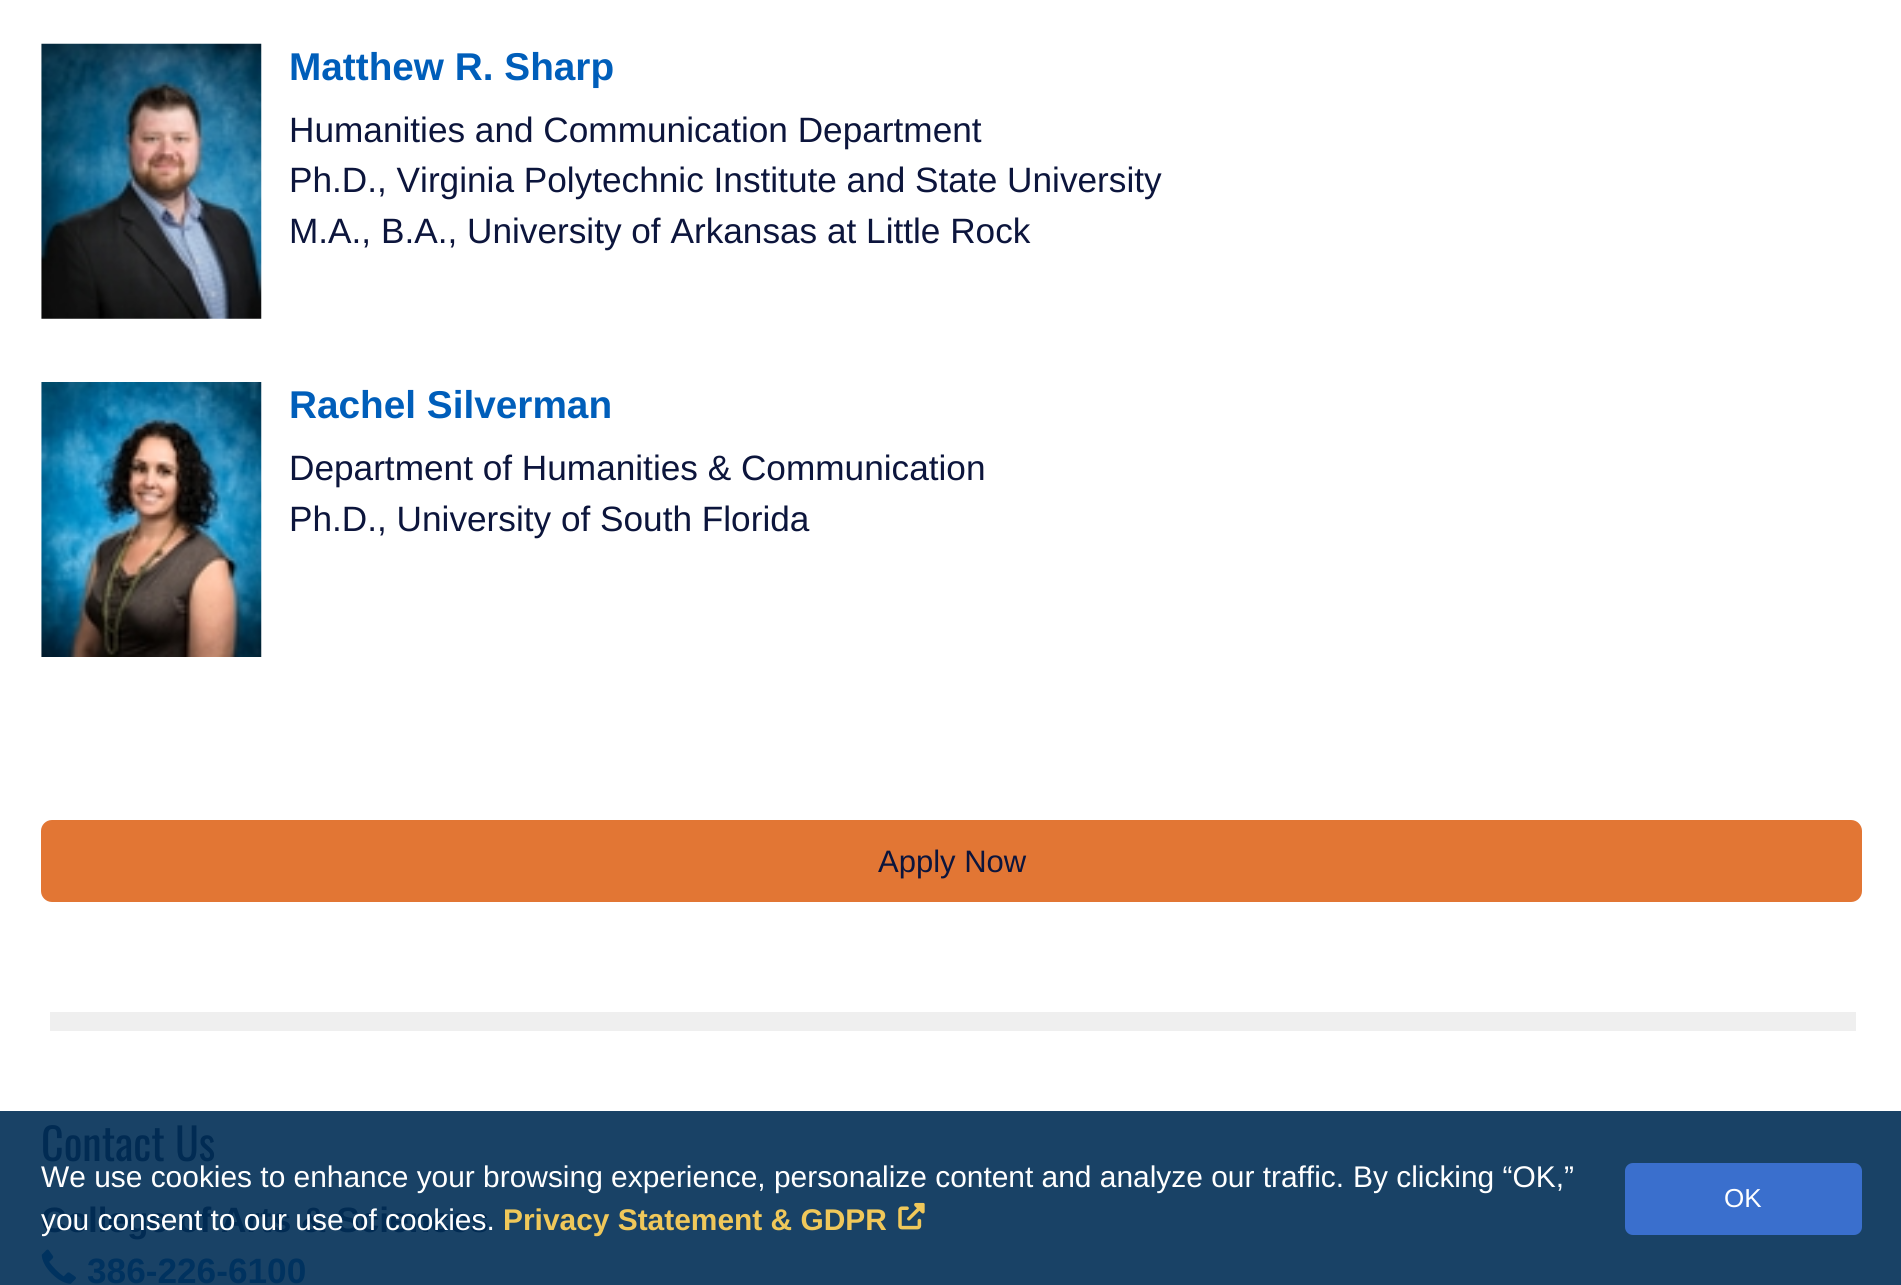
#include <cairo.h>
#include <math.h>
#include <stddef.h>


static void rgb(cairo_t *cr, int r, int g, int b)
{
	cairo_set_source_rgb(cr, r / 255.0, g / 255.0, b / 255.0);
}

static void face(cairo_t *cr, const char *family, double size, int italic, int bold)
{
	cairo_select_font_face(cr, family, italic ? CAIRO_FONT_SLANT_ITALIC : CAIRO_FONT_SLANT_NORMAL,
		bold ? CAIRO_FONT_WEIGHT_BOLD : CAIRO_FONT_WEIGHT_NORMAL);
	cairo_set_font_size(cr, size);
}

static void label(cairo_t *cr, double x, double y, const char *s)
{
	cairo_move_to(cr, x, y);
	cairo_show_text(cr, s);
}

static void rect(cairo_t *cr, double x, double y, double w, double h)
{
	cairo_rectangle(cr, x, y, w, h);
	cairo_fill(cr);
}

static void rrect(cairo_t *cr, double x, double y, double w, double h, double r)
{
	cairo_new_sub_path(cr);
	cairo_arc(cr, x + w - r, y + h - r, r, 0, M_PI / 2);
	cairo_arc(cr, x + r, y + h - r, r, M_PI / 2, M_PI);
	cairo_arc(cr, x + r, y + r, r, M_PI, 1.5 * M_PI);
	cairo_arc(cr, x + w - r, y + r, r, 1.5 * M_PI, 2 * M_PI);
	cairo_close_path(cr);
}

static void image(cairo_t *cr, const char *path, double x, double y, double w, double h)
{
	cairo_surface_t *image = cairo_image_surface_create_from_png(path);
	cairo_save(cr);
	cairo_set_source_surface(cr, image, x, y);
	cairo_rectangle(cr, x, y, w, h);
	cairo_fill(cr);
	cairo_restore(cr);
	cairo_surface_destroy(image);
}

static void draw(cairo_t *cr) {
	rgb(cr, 255, 255, 255);
	cairo_paint(cr);
	rgb(cr, 25, 66, 102);
	rect(cr, 0, 1111, 1901, 174);
	image(cr, "image0.png", 41, 43, 221, 276);
	face(cr, "Liberation Sans", 38.75, 0, 1);
	rgb(cr, 0, 94, 186);
	label(cr, 289, 80, "Matthew R. Sharp");
	face(cr, "Liberation Sans", 35.2, 0, 0);
	rgb(cr, 12, 21, 60);
	label(cr, 289, 142, "Humanities and Communication Department");
	label(cr, 289, 192, "Ph.D., Virginia Polytechnic Institute and State University");
	label(cr, 289, 243, "M.A., B.A., University of Arkansas at Little Rock");
	image(cr, "image1.png", 41, 382, 221, 275);
	face(cr, "Liberation Sans", 38.75, 0, 1);
	rgb(cr, 0, 94, 186);
	label(cr, 289, 418, "Rachel Silverman");
	face(cr, "Liberation Sans", 35.2, 0, 0);
	rgb(cr, 12, 21, 60);
	label(cr, 289, 480, "Department of Humanities & Communication");
	label(cr, 289, 531, "Ph.D., University of South Florida");
	rgb(cr, 239, 239, 239);
	rect(cr, 50, 1012, 1806, 19);
	rgb(cr, 226, 118, 52);
	rrect(cr, 41, 820, 1821, 82, 11);
	cairo_fill(cr);
	face(cr, "Liberation Sans", 31, 0, 0);
	rgb(cr, 12, 21, 60);
	label(cr, 878, 872, "Apply Now");
	face(cr, "Oswald", 44, 0, 0);
	rgb(cr, 1, 43, 83);
	label(cr, 41, 1161, "Contact Us");
	face(cr, "Liberation Sans", 35.2, 0, 1);
	label(cr, 41, 1232, "College of Arts & Sciences");
	image(cr, "image2.png", 41, 1249, 35, 35);
	rgb(cr, 0, 50, 95);
	label(cr, 87, 1283, "386-226-6100");
	face(cr, "Liberation Sans", 29.9, 0, 0);
	rgb(cr, 255, 255, 255);
	label(cr, 41, 1187, "We use cookies to enhance your browsing experience, personalize content and analyze our traffic.");
	label(cr, 1353, 1187, "By clicking “OK,”");
	label(cr, 41, 1230, "you consent to our use of cookies.");
	face(cr, "Liberation Sans", 29.9, 0, 1);
	rgb(cr, 240, 200, 90);
	label(cr, 503, 1230, "Privacy Statement & GDPR");
	image(cr, "image3.png", 898, 1202, 27, 28);
	rgb(cr, 58, 111, 205);
	rrect(cr, 1625, 1163, 237, 72, 8);
	cairo_fill(cr);
	face(cr, "Liberation Sans", 26, 0, 0);
	rgb(cr, 255, 255, 255);
	label(cr, 1724, 1207, "OK");
}

int main(void) {
	cairo_surface_t *surface = cairo_image_surface_create(CAIRO_FORMAT_RGB24, 1901, 1285);
	cairo_t *cr = cairo_create(surface);
	cairo_font_options_t *options = cairo_font_options_create();
	cairo_font_options_set_hint_metrics(options, CAIRO_HINT_METRICS_OFF);
	cairo_font_options_set_hint_style(options, CAIRO_HINT_STYLE_NONE);
	cairo_set_font_options(cr, options);
	cairo_set_miter_limit(cr, 4);
	draw(cr);
	cairo_surface_write_to_png(surface, "render.png");
	cairo_font_options_destroy(options);
	cairo_destroy(cr);
	cairo_surface_destroy(surface);
	return 0;
}
